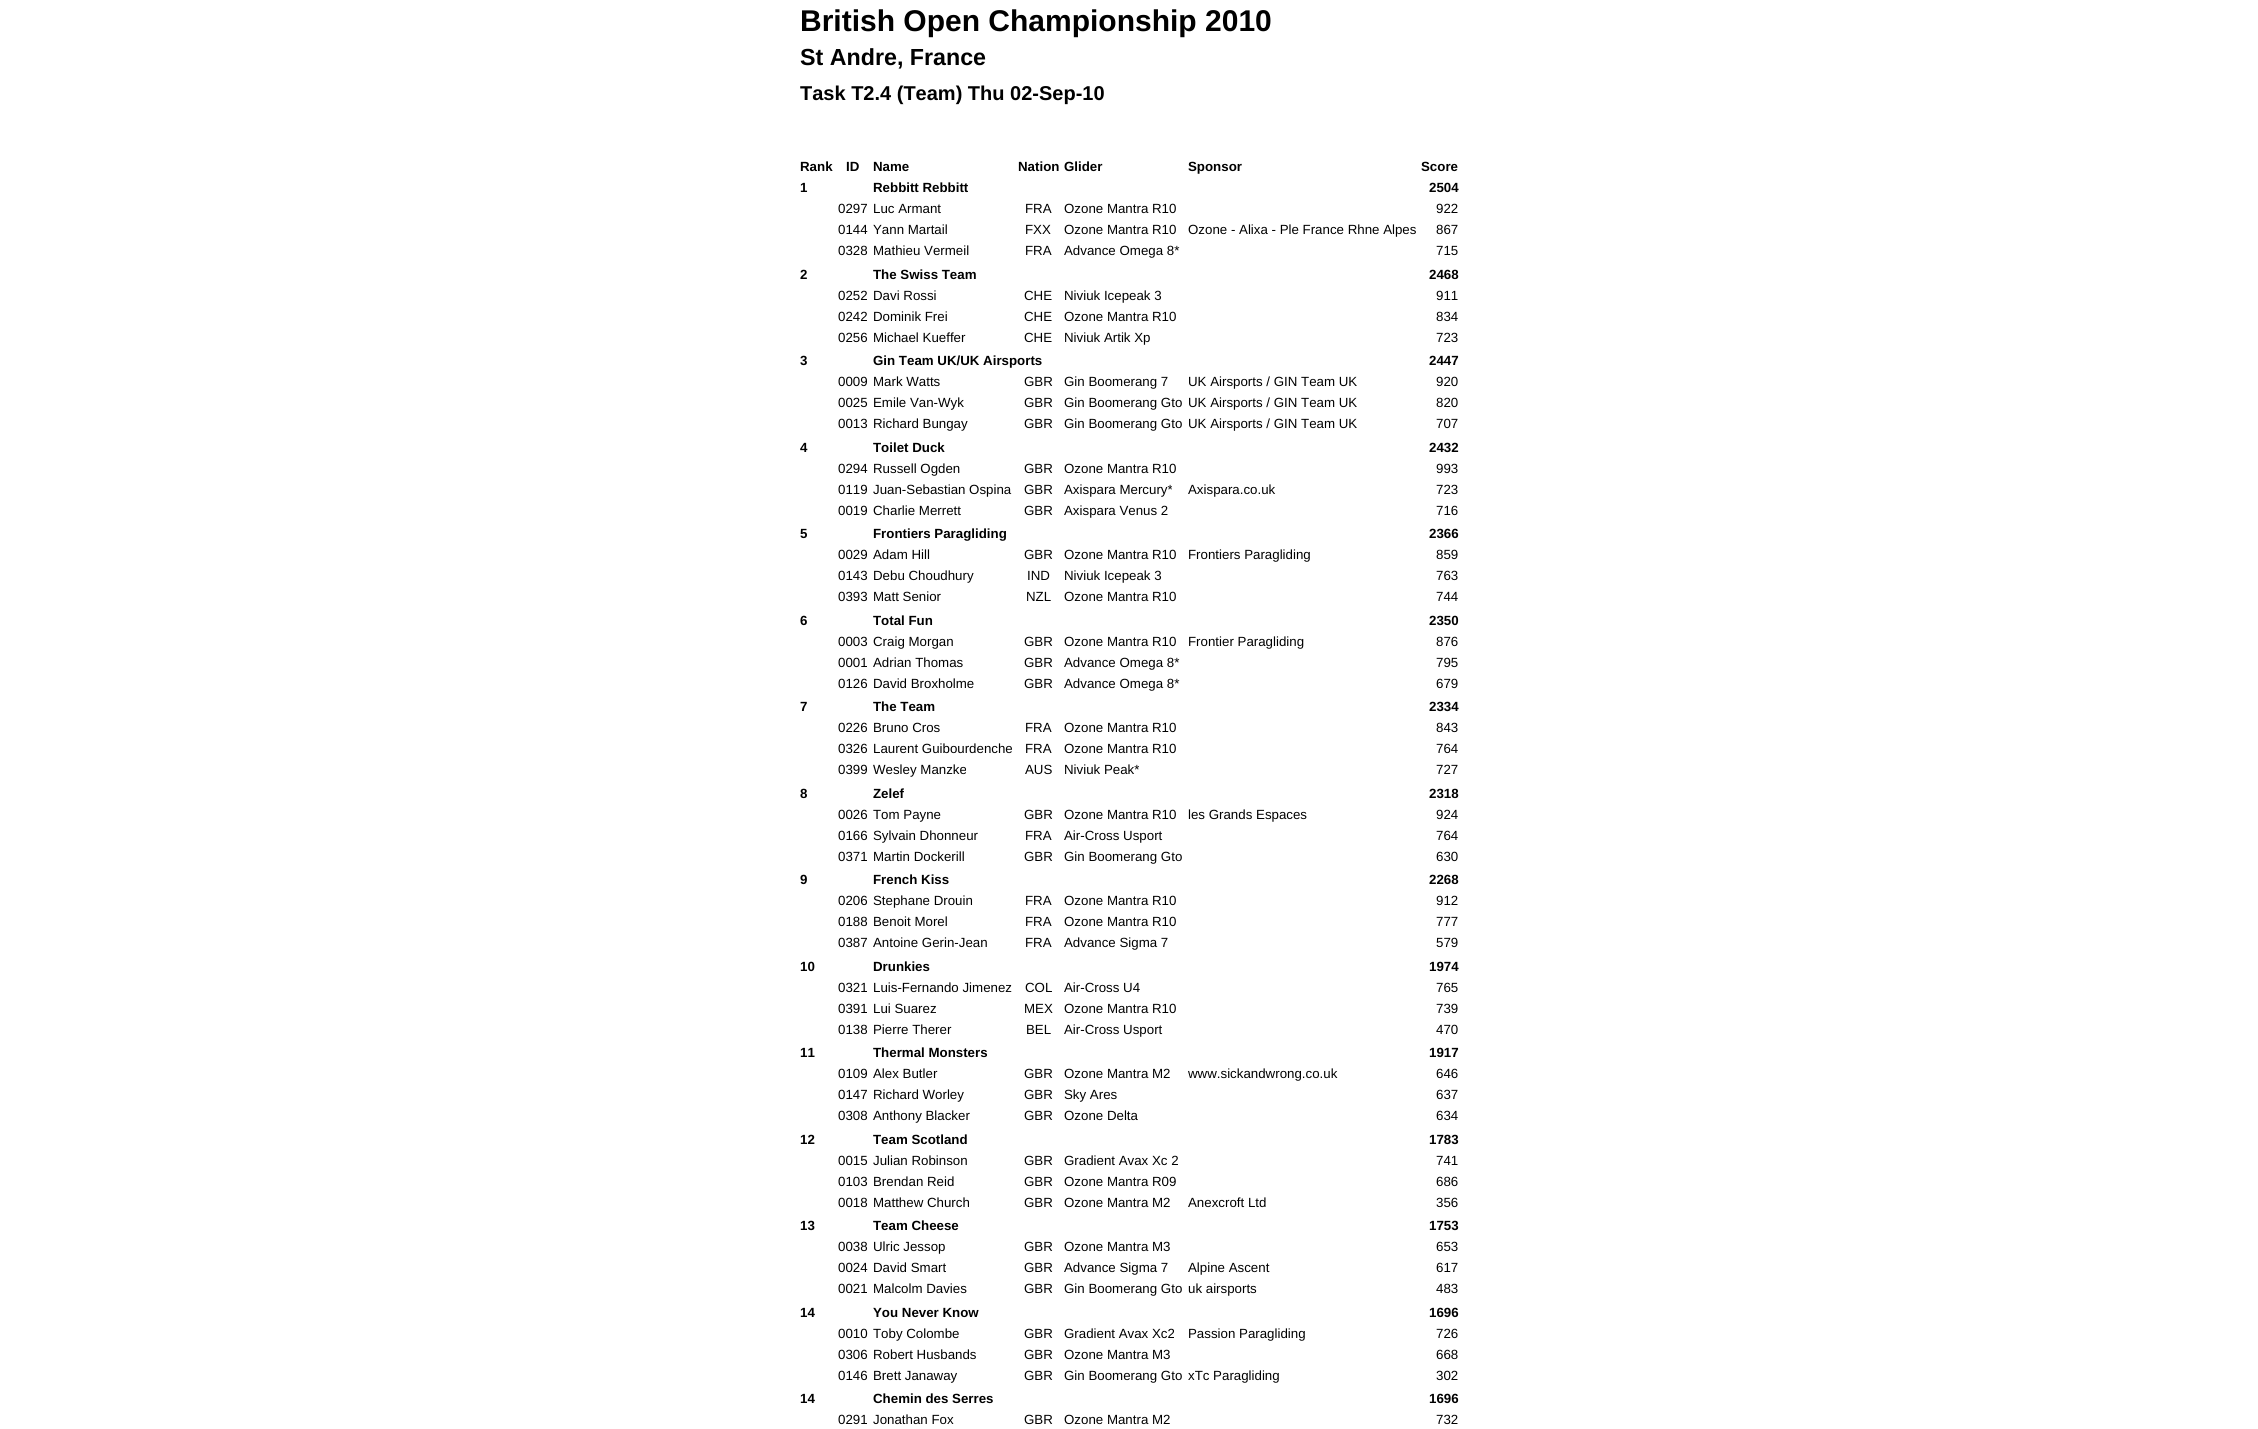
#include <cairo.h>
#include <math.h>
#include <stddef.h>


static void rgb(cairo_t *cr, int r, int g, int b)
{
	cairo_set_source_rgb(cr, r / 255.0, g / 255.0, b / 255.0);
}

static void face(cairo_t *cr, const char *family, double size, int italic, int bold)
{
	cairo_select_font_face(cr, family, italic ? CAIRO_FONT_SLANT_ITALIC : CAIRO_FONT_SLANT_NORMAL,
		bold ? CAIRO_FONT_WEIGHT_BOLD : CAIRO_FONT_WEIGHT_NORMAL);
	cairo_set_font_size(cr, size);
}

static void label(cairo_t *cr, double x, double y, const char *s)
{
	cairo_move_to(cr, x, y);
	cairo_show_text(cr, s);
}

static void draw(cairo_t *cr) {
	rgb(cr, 255, 255, 255);
	cairo_paint(cr);
	face(cr, "Liberation Sans", 30, 0, 1);
	rgb(cr, 0, 0, 0);
	label(cr, 800, 31, "British Open Championship 2010");
	face(cr, "Liberation Sans", 23.25, 0, 1);
	label(cr, 800, 65, "St Andre, France");
	face(cr, "Liberation Sans", 20, 0, 1);
	label(cr, 800, 100, "Task T2.4 (Team) Thu 02-Sep-10");
	face(cr, "Liberation Sans", 13.3, 0, 1);
	label(cr, 800, 171, "Rank");
	label(cr, 846, 171, "ID");
	label(cr, 873, 171, "Name");
	label(cr, 1018, 171, "Nation");
	label(cr, 1064, 171, "Glider");
	label(cr, 1188, 171, "Sponsor");
	label(cr, 1421, 171, "Score");
	label(cr, 800, 192, "1");
	label(cr, 873, 192, "Rebbitt Rebbitt");
	label(cr, 1429, 192, "2504");
	face(cr, "Liberation Sans", 13.3, 0, 0);
	label(cr, 838, 213, "0297");
	label(cr, 873, 213, "Luc Armant");
	label(cr, 1025, 213, "FRA");
	label(cr, 1064, 213, "Ozone Mantra R10");
	label(cr, 1436, 213, "922");
	label(cr, 838, 234, "0144");
	label(cr, 873, 234, "Yann Martail");
	label(cr, 1025, 234, "FXX");
	label(cr, 1064, 234, "Ozone Mantra R10");
	label(cr, 1188, 234, "Ozone - Alixa - Ple France Rhne Alpes");
	label(cr, 1436, 234, "867");
	label(cr, 838, 255, "0328");
	label(cr, 873, 255, "Mathieu Vermeil");
	label(cr, 1025, 255, "FRA");
	label(cr, 1064, 255, "Advance Omega 8*");
	label(cr, 1436, 255, "715");
	face(cr, "Liberation Sans", 13.3, 0, 1);
	label(cr, 800, 279, "2");
	label(cr, 873, 279, "The Swiss Team");
	label(cr, 1429, 279, "2468");
	face(cr, "Liberation Sans", 13.3, 0, 0);
	label(cr, 838, 300, "0252");
	label(cr, 873, 300, "Davi Rossi");
	label(cr, 1024, 300, "CHE");
	label(cr, 1064, 300, "Niviuk Icepeak 3");
	label(cr, 1436, 300, "911");
	label(cr, 838, 321, "0242");
	label(cr, 873, 321, "Dominik Frei");
	label(cr, 1024, 321, "CHE");
	label(cr, 1064, 321, "Ozone Mantra R10");
	label(cr, 1436, 321, "834");
	label(cr, 838, 342, "0256");
	label(cr, 873, 342, "Michael Kueffer");
	label(cr, 1024, 342, "CHE");
	label(cr, 1064, 342, "Niviuk Artik Xp");
	label(cr, 1436, 342, "723");
	face(cr, "Liberation Sans", 13.3, 0, 1);
	label(cr, 800, 365, "3");
	label(cr, 873, 365, "Gin Team UK/UK Airsports");
	label(cr, 1429, 365, "2447");
	face(cr, "Liberation Sans", 13.3, 0, 0);
	label(cr, 838, 386, "0009");
	label(cr, 873, 386, "Mark Watts");
	label(cr, 1024, 386, "GBR");
	label(cr, 1064, 386, "Gin Boomerang 7");
	label(cr, 1188, 386, "UK Airsports / GIN Team UK");
	label(cr, 1436, 386, "920");
	label(cr, 838, 407, "0025");
	label(cr, 873, 407, "Emile Van-Wyk");
	label(cr, 1024, 407, "GBR");
	label(cr, 1064, 407, "Gin Boomerang Gto");
	label(cr, 1188, 407, "UK Airsports / GIN Team UK");
	label(cr, 1436, 407, "820");
	label(cr, 838, 428, "0013");
	label(cr, 873, 428, "Richard Bungay");
	label(cr, 1024, 428, "GBR");
	label(cr, 1064, 428, "Gin Boomerang Gto");
	label(cr, 1188, 428, "UK Airsports / GIN Team UK");
	label(cr, 1436, 428, "707");
	face(cr, "Liberation Sans", 13.3, 0, 1);
	label(cr, 800, 452, "4");
	label(cr, 873, 452, "Toilet Duck");
	label(cr, 1429, 452, "2432");
	face(cr, "Liberation Sans", 13.3, 0, 0);
	label(cr, 838, 473, "0294");
	label(cr, 873, 473, "Russell Ogden");
	label(cr, 1024, 473, "GBR");
	label(cr, 1064, 473, "Ozone Mantra R10");
	label(cr, 1436, 473, "993");
	label(cr, 838, 494, "0119");
	label(cr, 873, 494, "Juan-Sebastian Ospina");
	label(cr, 1024, 494, "GBR");
	label(cr, 1064, 494, "Axispara Mercury*");
	label(cr, 1188, 494, "Axispara.co.uk");
	label(cr, 1436, 494, "723");
	label(cr, 838, 515, "0019");
	label(cr, 873, 515, "Charlie Merrett");
	label(cr, 1024, 515, "GBR");
	label(cr, 1064, 515, "Axispara Venus 2");
	label(cr, 1436, 515, "716");
	face(cr, "Liberation Sans", 13.3, 0, 1);
	label(cr, 800, 538, "5");
	label(cr, 873, 538, "Frontiers Paragliding");
	label(cr, 1429, 538, "2366");
	face(cr, "Liberation Sans", 13.3, 0, 0);
	label(cr, 838, 559, "0029");
	label(cr, 873, 559, "Adam Hill");
	label(cr, 1024, 559, "GBR");
	label(cr, 1064, 559, "Ozone Mantra R10");
	label(cr, 1188, 559, "Frontiers Paragliding");
	label(cr, 1436, 559, "859");
	label(cr, 838, 580, "0143");
	label(cr, 873, 580, "Debu Choudhury");
	label(cr, 1027, 580, "IND");
	label(cr, 1064, 580, "Niviuk Icepeak 3");
	label(cr, 1436, 580, "763");
	label(cr, 838, 601, "0393");
	label(cr, 873, 601, "Matt Senior");
	label(cr, 1026, 601, "NZL");
	label(cr, 1064, 601, "Ozone Mantra R10");
	label(cr, 1436, 601, "744");
	face(cr, "Liberation Sans", 13.3, 0, 1);
	label(cr, 800, 625, "6");
	label(cr, 873, 625, "Total Fun");
	label(cr, 1429, 625, "2350");
	face(cr, "Liberation Sans", 13.3, 0, 0);
	label(cr, 838, 646, "0003");
	label(cr, 873, 646, "Craig Morgan");
	label(cr, 1024, 646, "GBR");
	label(cr, 1064, 646, "Ozone Mantra R10");
	label(cr, 1188, 646, "Frontier Paragliding");
	label(cr, 1436, 646, "876");
	label(cr, 838, 667, "0001");
	label(cr, 873, 667, "Adrian Thomas");
	label(cr, 1024, 667, "GBR");
	label(cr, 1064, 667, "Advance Omega 8*");
	label(cr, 1436, 667, "795");
	label(cr, 838, 688, "0126");
	label(cr, 873, 688, "David Broxholme");
	label(cr, 1024, 688, "GBR");
	label(cr, 1064, 688, "Advance Omega 8*");
	label(cr, 1436, 688, "679");
	face(cr, "Liberation Sans", 13.3, 0, 1);
	label(cr, 800, 711, "7");
	label(cr, 873, 711, "The Team");
	label(cr, 1429, 711, "2334");
	face(cr, "Liberation Sans", 13.3, 0, 0);
	label(cr, 838, 732, "0226");
	label(cr, 873, 732, "Bruno Cros");
	label(cr, 1025, 732, "FRA");
	label(cr, 1064, 732, "Ozone Mantra R10");
	label(cr, 1436, 732, "843");
	label(cr, 838, 753, "0326");
	label(cr, 873, 753, "Laurent Guibourdenche");
	label(cr, 1025, 753, "FRA");
	label(cr, 1064, 753, "Ozone Mantra R10");
	label(cr, 1436, 753, "764");
	label(cr, 838, 774, "0399");
	label(cr, 873, 774, "Wesley Manzke");
	label(cr, 1025, 774, "AUS");
	label(cr, 1064, 774, "Niviuk Peak*");
	label(cr, 1436, 774, "727");
	face(cr, "Liberation Sans", 13.3, 0, 1);
	label(cr, 800, 798, "8");
	label(cr, 873, 798, "Zelef");
	label(cr, 1429, 798, "2318");
	face(cr, "Liberation Sans", 13.3, 0, 0);
	label(cr, 838, 819, "0026");
	label(cr, 873, 819, "Tom Payne");
	label(cr, 1024, 819, "GBR");
	label(cr, 1064, 819, "Ozone Mantra R10");
	label(cr, 1188, 819, "les Grands Espaces");
	label(cr, 1436, 819, "924");
	label(cr, 838, 840, "0166");
	label(cr, 873, 840, "Sylvain Dhonneur");
	label(cr, 1025, 840, "FRA");
	label(cr, 1064, 840, "Air-Cross Usport");
	label(cr, 1436, 840, "764");
	label(cr, 838, 861, "0371");
	label(cr, 873, 861, "Martin Dockerill");
	label(cr, 1024, 861, "GBR");
	label(cr, 1064, 861, "Gin Boomerang Gto");
	label(cr, 1436, 861, "630");
	face(cr, "Liberation Sans", 13.3, 0, 1);
	label(cr, 800, 884, "9");
	label(cr, 873, 884, "French Kiss");
	label(cr, 1429, 884, "2268");
	face(cr, "Liberation Sans", 13.3, 0, 0);
	label(cr, 838, 905, "0206");
	label(cr, 873, 905, "Stephane Drouin");
	label(cr, 1025, 905, "FRA");
	label(cr, 1064, 905, "Ozone Mantra R10");
	label(cr, 1436, 905, "912");
	label(cr, 838, 926, "0188");
	label(cr, 873, 926, "Benoit Morel");
	label(cr, 1025, 926, "FRA");
	label(cr, 1064, 926, "Ozone Mantra R10");
	label(cr, 1436, 926, "777");
	label(cr, 838, 947, "0387");
	label(cr, 873, 947, "Antoine Gerin-Jean");
	label(cr, 1025, 947, "FRA");
	label(cr, 1064, 947, "Advance Sigma 7");
	label(cr, 1436, 947, "579");
	face(cr, "Liberation Sans", 13.3, 0, 1);
	label(cr, 800, 971, "10");
	label(cr, 873, 971, "Drunkies");
	label(cr, 1429, 971, "1974");
	face(cr, "Liberation Sans", 13.3, 0, 0);
	label(cr, 838, 992, "0321");
	label(cr, 873, 992, "Luis-Fernando Jimenez");
	label(cr, 1025, 992, "COL");
	label(cr, 1064, 992, "Air-Cross U4");
	label(cr, 1436, 992, "765");
	label(cr, 838, 1013, "0391");
	label(cr, 873, 1013, "Lui Suarez");
	label(cr, 1024, 1013, "MEX");
	label(cr, 1064, 1013, "Ozone Mantra R10");
	label(cr, 1436, 1013, "739");
	label(cr, 838, 1034, "0138");
	label(cr, 873, 1034, "Pierre Therer");
	label(cr, 1026, 1034, "BEL");
	label(cr, 1064, 1034, "Air-Cross Usport");
	label(cr, 1436, 1034, "470");
	face(cr, "Liberation Sans", 13.3, 0, 1);
	label(cr, 800, 1057, "11");
	label(cr, 873, 1057, "Thermal Monsters");
	label(cr, 1429, 1057, "1917");
	face(cr, "Liberation Sans", 13.3, 0, 0);
	label(cr, 838, 1078, "0109");
	label(cr, 873, 1078, "Alex Butler");
	label(cr, 1024, 1078, "GBR");
	label(cr, 1064, 1078, "Ozone Mantra M2");
	label(cr, 1188, 1078, "www.sickandwrong.co.uk");
	label(cr, 1436, 1078, "646");
	label(cr, 838, 1099, "0147");
	label(cr, 873, 1099, "Richard Worley");
	label(cr, 1024, 1099, "GBR");
	label(cr, 1064, 1099, "Sky Ares");
	label(cr, 1436, 1099, "637");
	label(cr, 838, 1120, "0308");
	label(cr, 873, 1120, "Anthony Blacker");
	label(cr, 1024, 1120, "GBR");
	label(cr, 1064, 1120, "Ozone Delta");
	label(cr, 1436, 1120, "634");
	face(cr, "Liberation Sans", 13.3, 0, 1);
	label(cr, 800, 1144, "12");
	label(cr, 873, 1144, "Team Scotland");
	label(cr, 1429, 1144, "1783");
	face(cr, "Liberation Sans", 13.3, 0, 0);
	label(cr, 838, 1165, "0015");
	label(cr, 873, 1165, "Julian Robinson");
	label(cr, 1024, 1165, "GBR");
	label(cr, 1064, 1165, "Gradient Avax Xc 2");
	label(cr, 1436, 1165, "741");
	label(cr, 838, 1186, "0103");
	label(cr, 873, 1186, "Brendan Reid");
	label(cr, 1024, 1186, "GBR");
	label(cr, 1064, 1186, "Ozone Mantra R09");
	label(cr, 1436, 1186, "686");
	label(cr, 838, 1207, "0018");
	label(cr, 873, 1207, "Matthew Church");
	label(cr, 1024, 1207, "GBR");
	label(cr, 1064, 1207, "Ozone Mantra M2");
	label(cr, 1188, 1207, "Anexcroft Ltd");
	label(cr, 1436, 1207, "356");
	face(cr, "Liberation Sans", 13.3, 0, 1);
	label(cr, 800, 1230, "13");
	label(cr, 873, 1230, "Team Cheese");
	label(cr, 1429, 1230, "1753");
	face(cr, "Liberation Sans", 13.3, 0, 0);
	label(cr, 838, 1251, "0038");
	label(cr, 873, 1251, "Ulric Jessop");
	label(cr, 1024, 1251, "GBR");
	label(cr, 1064, 1251, "Ozone Mantra M3");
	label(cr, 1436, 1251, "653");
	label(cr, 838, 1272, "0024");
	label(cr, 873, 1272, "David Smart");
	label(cr, 1024, 1272, "GBR");
	label(cr, 1064, 1272, "Advance Sigma 7");
	label(cr, 1188, 1272, "Alpine Ascent");
	label(cr, 1436, 1272, "617");
	label(cr, 838, 1293, "0021");
	label(cr, 873, 1293, "Malcolm Davies");
	label(cr, 1024, 1293, "GBR");
	label(cr, 1064, 1293, "Gin Boomerang Gto");
	label(cr, 1188, 1293, "uk airsports");
	label(cr, 1436, 1293, "483");
	face(cr, "Liberation Sans", 13.3, 0, 1);
	label(cr, 800, 1317, "14");
	label(cr, 873, 1317, "You Never Know");
	label(cr, 1429, 1317, "1696");
	face(cr, "Liberation Sans", 13.3, 0, 0);
	label(cr, 838, 1338, "0010");
	label(cr, 873, 1338, "Toby Colombe");
	label(cr, 1024, 1338, "GBR");
	label(cr, 1064, 1338, "Gradient Avax Xc2");
	label(cr, 1188, 1338, "Passion Paragliding");
	label(cr, 1436, 1338, "726");
	label(cr, 838, 1359, "0306");
	label(cr, 873, 1359, "Robert Husbands");
	label(cr, 1024, 1359, "GBR");
	label(cr, 1064, 1359, "Ozone Mantra M3");
	label(cr, 1436, 1359, "668");
	label(cr, 838, 1380, "0146");
	label(cr, 873, 1380, "Brett Janaway");
	label(cr, 1024, 1380, "GBR");
	label(cr, 1064, 1380, "Gin Boomerang Gto");
	label(cr, 1188, 1380, "xTc Paragliding");
	label(cr, 1436, 1380, "302");
	face(cr, "Liberation Sans", 13.3, 0, 1);
	label(cr, 800, 1403, "14");
	label(cr, 873, 1403, "Chemin des Serres");
	label(cr, 1429, 1403, "1696");
	face(cr, "Liberation Sans", 13.3, 0, 0);
	label(cr, 838, 1424, "0291");
	label(cr, 873, 1424, "Jonathan Fox");
	label(cr, 1024, 1424, "GBR");
	label(cr, 1064, 1424, "Ozone Mantra M2");
	label(cr, 1436, 1424, "732");
}

int main(void) {
	cairo_surface_t *surface = cairo_image_surface_create(CAIRO_FORMAT_RGB24, 2258, 1429);
	cairo_t *cr = cairo_create(surface);
	cairo_font_options_t *options = cairo_font_options_create();
	cairo_font_options_set_hint_metrics(options, CAIRO_HINT_METRICS_OFF);
	cairo_font_options_set_hint_style(options, CAIRO_HINT_STYLE_NONE);
	cairo_set_font_options(cr, options);
	cairo_set_miter_limit(cr, 4);
	draw(cr);
	cairo_surface_write_to_png(surface, "render.png");
	cairo_font_options_destroy(options);
	cairo_destroy(cr);
	cairo_surface_destroy(surface);
	return 0;
}
